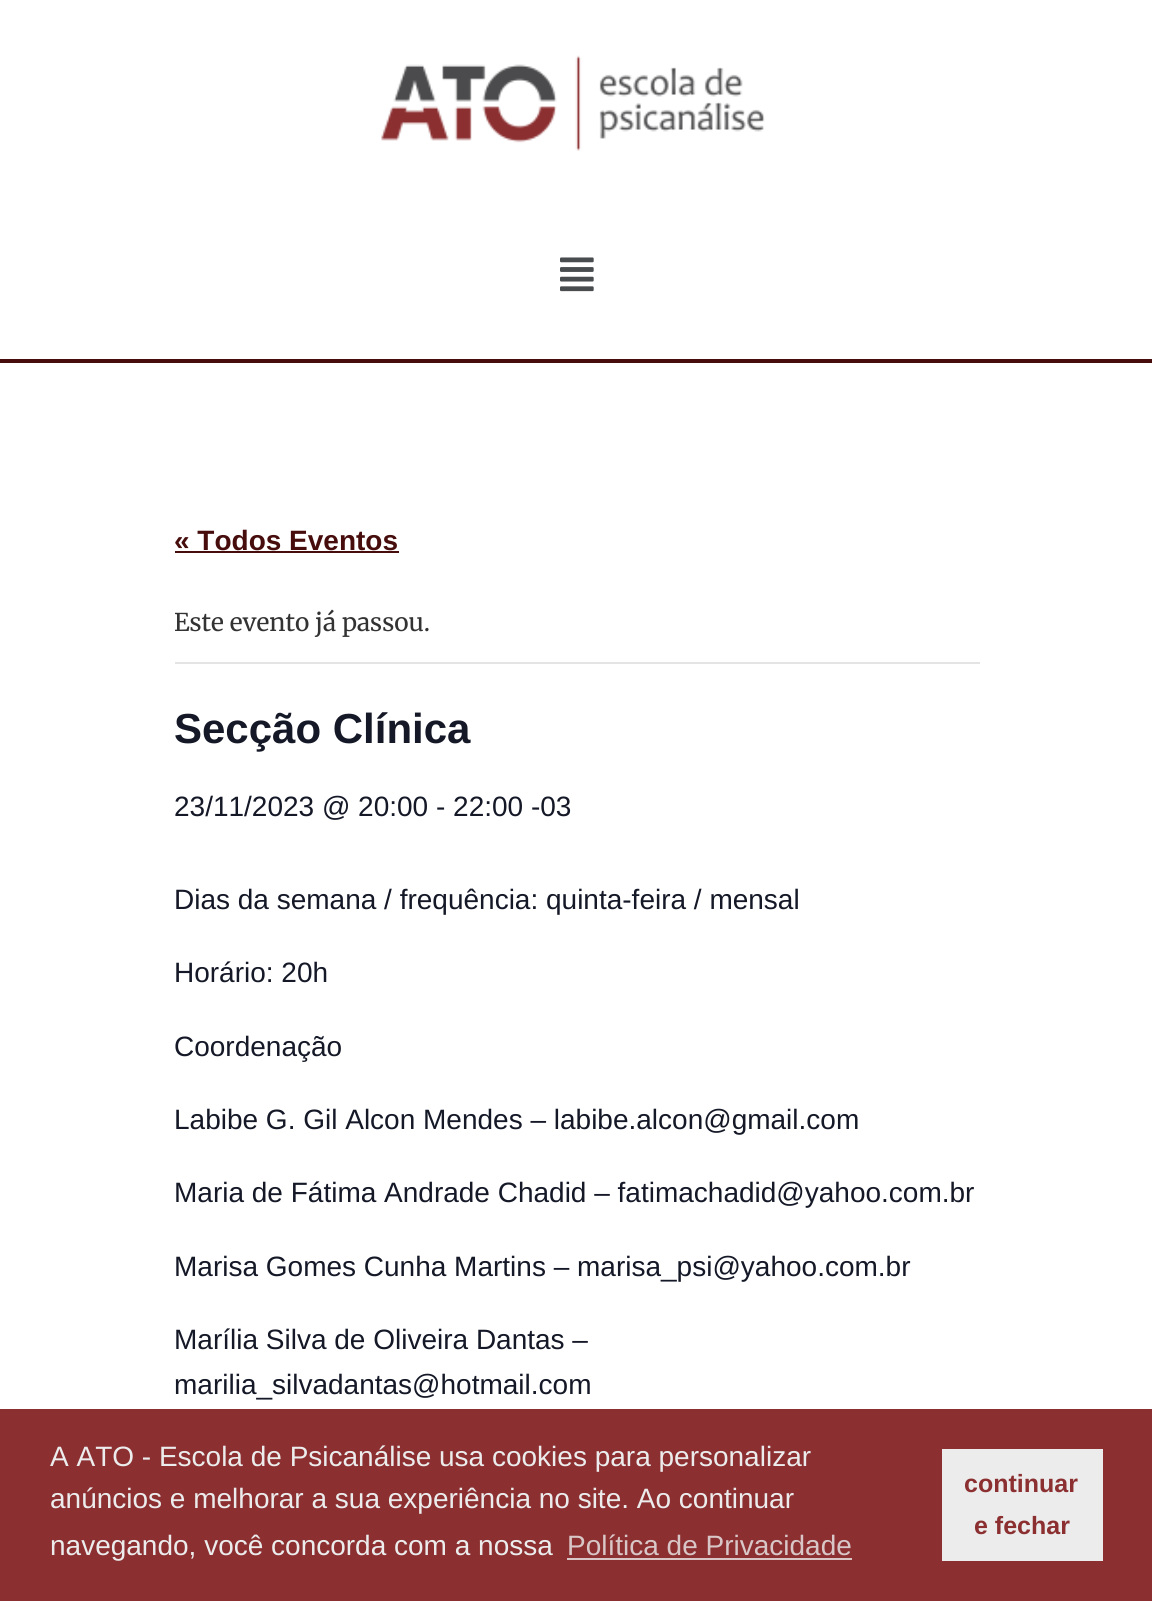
#include <cairo.h>
#include <math.h>
#include <stddef.h>


static void rgb(cairo_t *cr, int r, int g, int b)
{
	cairo_set_source_rgb(cr, r / 255.0, g / 255.0, b / 255.0);
}

static void face(cairo_t *cr, const char *family, double size, int italic, int bold)
{
	cairo_select_font_face(cr, family, italic ? CAIRO_FONT_SLANT_ITALIC : CAIRO_FONT_SLANT_NORMAL,
		bold ? CAIRO_FONT_WEIGHT_BOLD : CAIRO_FONT_WEIGHT_NORMAL);
	cairo_set_font_size(cr, size);
}

static void label(cairo_t *cr, double x, double y, const char *s)
{
	cairo_move_to(cr, x, y);
	cairo_show_text(cr, s);
}

static void rect(cairo_t *cr, double x, double y, double w, double h)
{
	cairo_rectangle(cr, x, y, w, h);
	cairo_fill(cr);
}

static void image(cairo_t *cr, const char *path, double x, double y, double w, double h)
{
	cairo_surface_t *image = cairo_image_surface_create_from_png(path);
	cairo_save(cr);
	cairo_set_source_surface(cr, image, x, y);
	cairo_rectangle(cr, x, y, w, h);
	cairo_fill(cr);
	cairo_restore(cr);
	cairo_surface_destroy(image);
}

static void draw(cairo_t *cr) {
	rgb(cr, 255, 255, 255);
	cairo_paint(cr);
	image(cr, "image0.png", 381, 55, 384, 96);
	rgb(cr, 71, 13, 13);
	rect(cr, 0, 359, 1152, 4);
	image(cr, "image1.png", 560, 257, 34, 35);
	face(cr, "Liberation Sans", 28, 0, 1);
	label(cr, 174, 550, "« Todos Eventos");
	rect(cr, 175, 551, 224, 2);
	rgb(cr, 228, 228, 228);
	rect(cr, 175, 662, 805, 2);
	face(cr, "Merriweather", 24.5, 0, 0);
	rgb(cr, 51, 51, 51);
	label(cr, 174, 631, "Este evento já passou.");
	face(cr, "Liberation Sans", 42, 0, 1);
	rgb(cr, 20, 24, 39);
	label(cr, 174, 743, "Secção Clínica");
	face(cr, "Liberation Sans", 28, 0, 0);
	label(cr, 174, 816, "23/11/2023 @ 20:00 - 22:00 -03");
	label(cr, 174, 909, "Dias da semana / frequência: quinta-feira / mensal");
	label(cr, 174, 982, "Horário: 20h");
	label(cr, 174, 1056, "Coordenação");
	label(cr, 174, 1129, "Labibe G. Gil Alcon Mendes – labibe.alcon@gmail.com");
	label(cr, 174, 1202, "Maria de Fátima Andrade Chadid – fatimachadid@yahoo.com.br");
	label(cr, 174, 1276, "Marisa Gomes Cunha Martins – marisa_psi@yahoo.com.br");
	label(cr, 174, 1349, "Marília Silva de Oliveira Dantas –");
	label(cr, 174, 1394, "marilia_silvadantas@hotmail.com");
	rgb(cr, 139, 47, 49);
	rect(cr, 0, 1409, 1152, 192);
	rgb(cr, 236, 236, 236);
	label(cr, 50, 1466, "A ATO - Escola de Psicanálise usa cookies para personalizar");
	label(cr, 50, 1508, "anúncios e melhorar a sua experiência no site. Ao continuar");
	label(cr, 50, 1555, "navegando, você concorda com a nossa");
	rgb(cr, 217, 198, 199);
	label(cr, 567, 1555, "Política de Privacidade");
	rect(cr, 567, 1558, 285, 2);
	rgb(cr, 236, 236, 236);
	rect(cr, 942, 1449, 161, 112);
	face(cr, "Liberation Sans", 25, 0, 1);
	rgb(cr, 139, 47, 49);
	label(cr, 964, 1492, "continuar");
	label(cr, 974, 1534, "e fechar");
}

int main(void) {
	cairo_surface_t *surface = cairo_image_surface_create(CAIRO_FORMAT_RGB24, 1152, 1601);
	cairo_t *cr = cairo_create(surface);
	cairo_font_options_t *options = cairo_font_options_create();
	cairo_font_options_set_hint_metrics(options, CAIRO_HINT_METRICS_OFF);
	cairo_font_options_set_hint_style(options, CAIRO_HINT_STYLE_NONE);
	cairo_set_font_options(cr, options);
	cairo_set_miter_limit(cr, 4);
	draw(cr);
	cairo_surface_write_to_png(surface, "render.png");
	cairo_font_options_destroy(options);
	cairo_destroy(cr);
	cairo_surface_destroy(surface);
	return 0;
}
